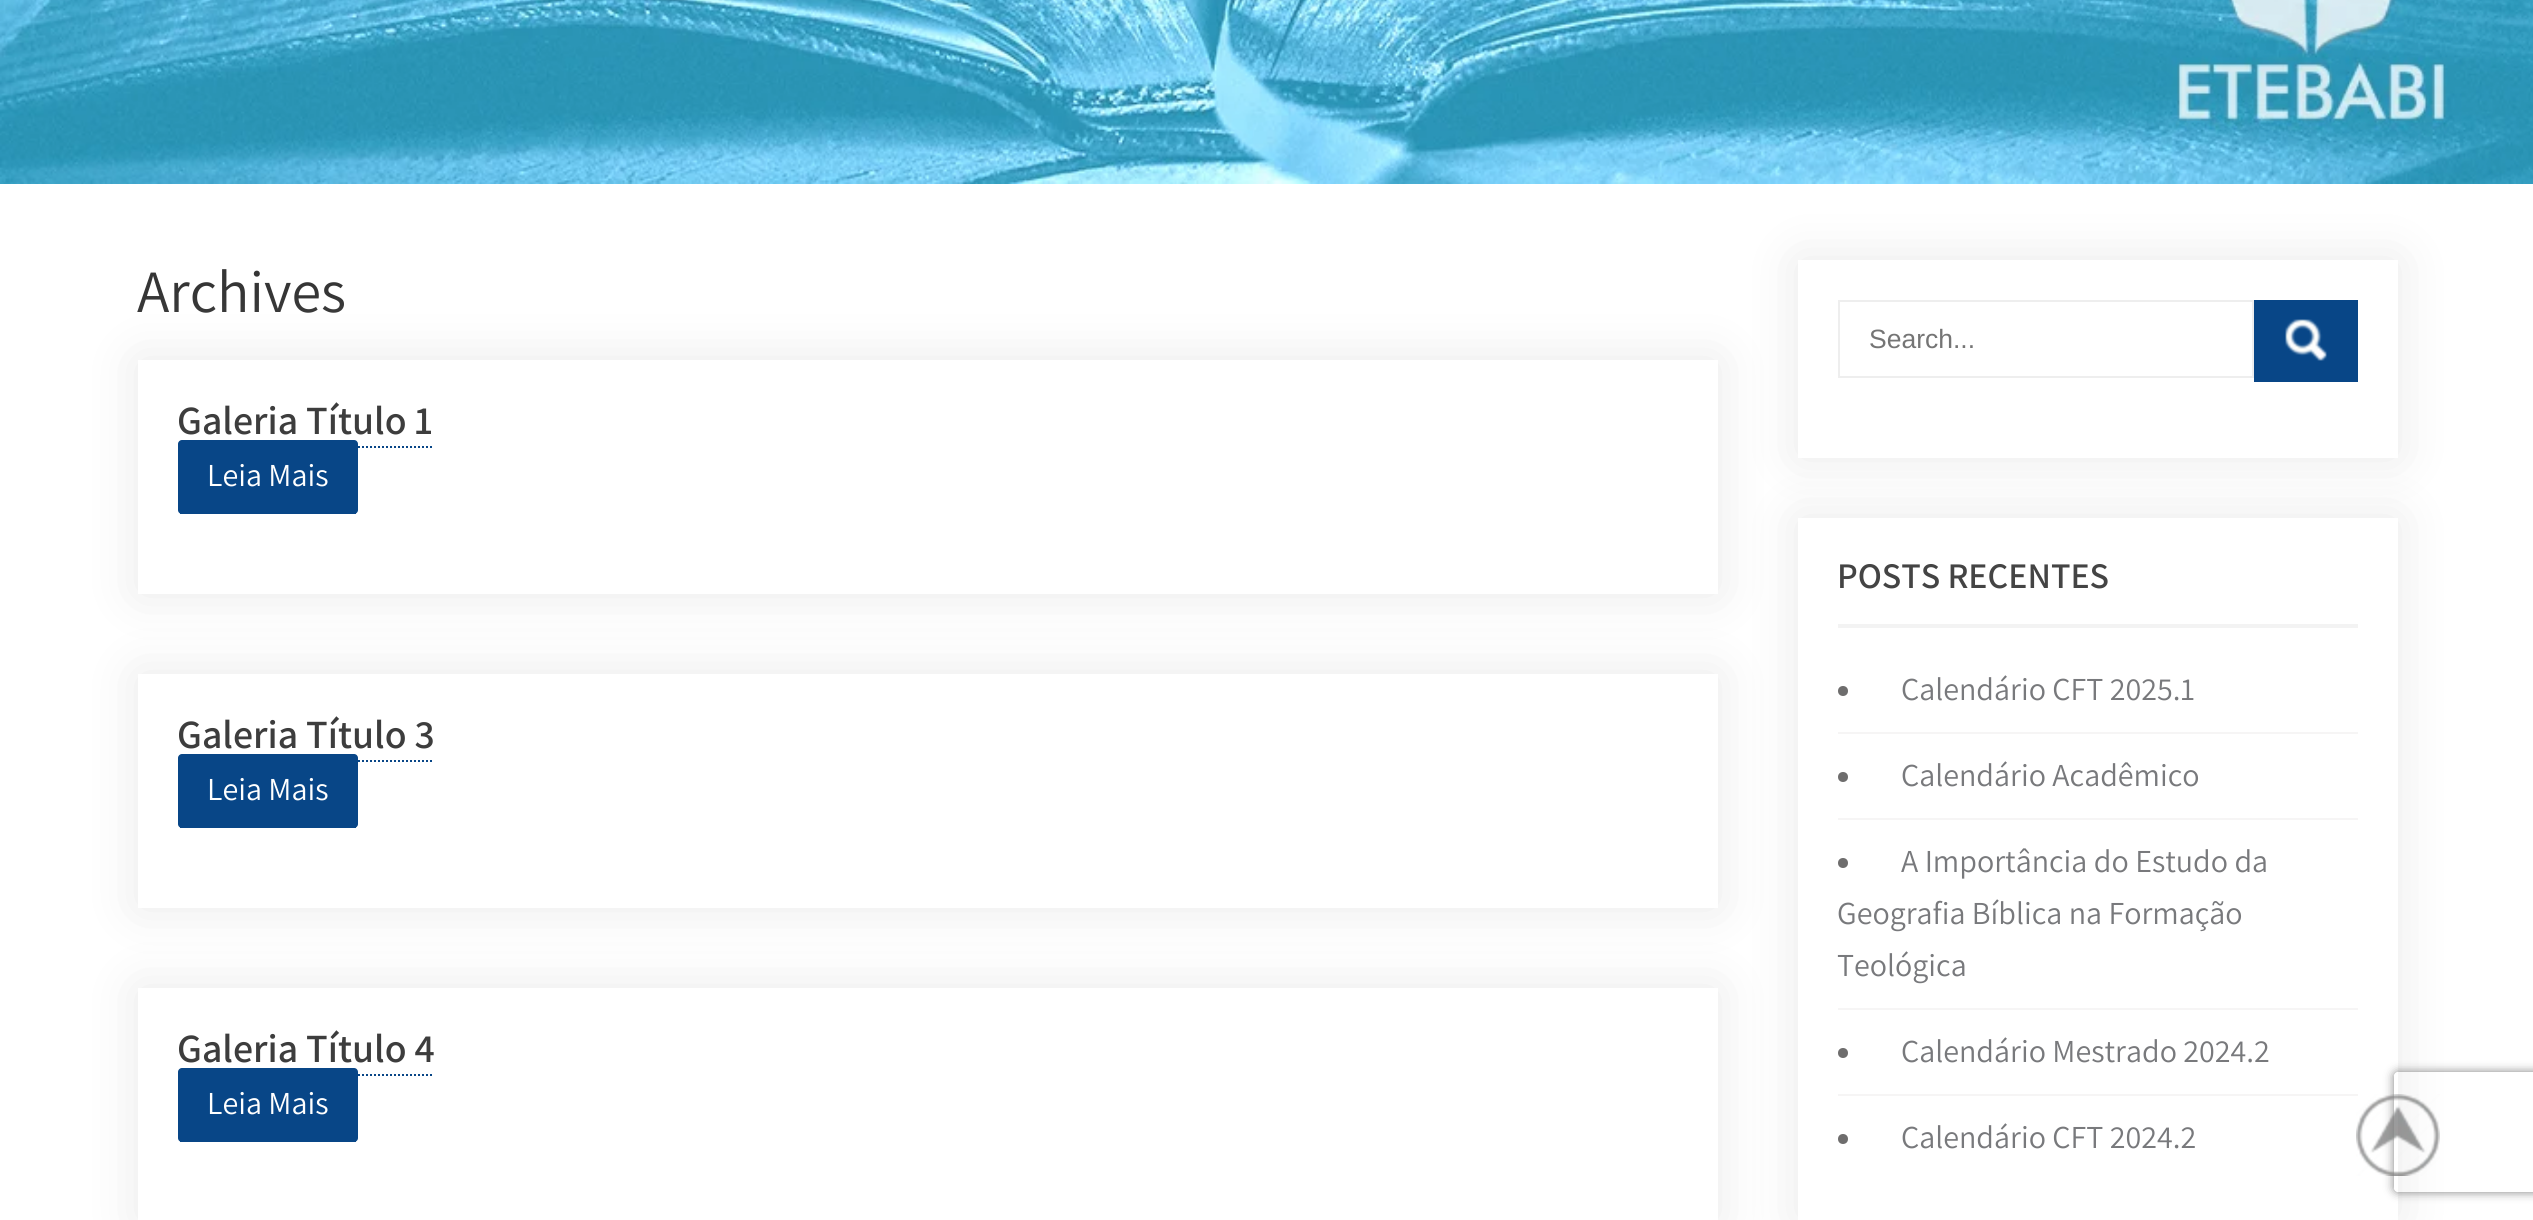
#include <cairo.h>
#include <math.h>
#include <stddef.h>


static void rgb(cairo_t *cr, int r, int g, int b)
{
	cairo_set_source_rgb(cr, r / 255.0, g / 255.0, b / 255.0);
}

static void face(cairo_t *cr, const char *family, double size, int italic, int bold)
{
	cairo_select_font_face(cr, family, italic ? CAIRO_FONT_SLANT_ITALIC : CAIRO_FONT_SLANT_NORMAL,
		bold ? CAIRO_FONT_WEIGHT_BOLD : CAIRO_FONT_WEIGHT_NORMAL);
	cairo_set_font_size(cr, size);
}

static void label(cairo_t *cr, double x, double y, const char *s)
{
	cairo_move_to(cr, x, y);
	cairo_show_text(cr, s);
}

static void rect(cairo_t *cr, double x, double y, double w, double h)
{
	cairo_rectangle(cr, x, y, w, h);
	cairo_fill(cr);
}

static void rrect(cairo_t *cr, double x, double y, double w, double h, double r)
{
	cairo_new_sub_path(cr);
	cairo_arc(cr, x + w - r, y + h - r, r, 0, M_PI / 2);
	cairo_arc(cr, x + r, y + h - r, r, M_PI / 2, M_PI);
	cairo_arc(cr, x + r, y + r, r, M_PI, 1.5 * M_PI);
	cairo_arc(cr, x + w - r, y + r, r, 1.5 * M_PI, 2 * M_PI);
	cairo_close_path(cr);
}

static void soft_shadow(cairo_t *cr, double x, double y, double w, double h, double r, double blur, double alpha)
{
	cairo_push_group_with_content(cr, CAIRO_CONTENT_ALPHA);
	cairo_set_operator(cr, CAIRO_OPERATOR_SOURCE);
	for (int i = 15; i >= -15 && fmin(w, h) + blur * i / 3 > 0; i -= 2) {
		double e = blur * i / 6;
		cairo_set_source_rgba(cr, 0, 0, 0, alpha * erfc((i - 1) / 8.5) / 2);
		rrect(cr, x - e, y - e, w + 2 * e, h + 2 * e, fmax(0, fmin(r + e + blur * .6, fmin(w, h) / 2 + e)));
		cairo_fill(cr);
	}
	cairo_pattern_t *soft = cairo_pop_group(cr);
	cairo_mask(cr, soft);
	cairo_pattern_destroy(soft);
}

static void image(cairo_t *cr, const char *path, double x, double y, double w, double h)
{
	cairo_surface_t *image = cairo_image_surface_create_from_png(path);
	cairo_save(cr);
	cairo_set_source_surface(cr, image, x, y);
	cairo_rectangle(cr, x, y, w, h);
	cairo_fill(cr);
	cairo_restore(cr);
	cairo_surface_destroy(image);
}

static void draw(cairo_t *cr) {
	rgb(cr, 255, 255, 255);
	cairo_paint(cr);
	image(cr, "image0.png", 0, 0, 2533, 184);
	face(cr, "Assistant ExtraLight", 60, 0, 0);
	rgb(cr, 53, 53, 53);
	label(cr, 137, 312, "Archives");
	cairo_save(cr);
	cairo_set_fill_rule(cr, CAIRO_FILL_RULE_EVEN_ODD);
	cairo_new_path(cr);
	cairo_move_to(cr, 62, 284);
	cairo_line_to(cr, 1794, 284);
	cairo_line_to(cr, 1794, 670);
	cairo_line_to(cr, 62, 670);
	cairo_close_path(cr);
	cairo_move_to(cr, 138, 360);
	cairo_line_to(cr, 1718, 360);
	cairo_line_to(cr, 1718, 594);
	cairo_line_to(cr, 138, 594);
	cairo_close_path(cr);
	cairo_clip(cr);
	rgb(cr, 233, 233, 233);
	soft_shadow(cr, 138, 360, 1580, 234, 0, 25, 1);
	cairo_restore(cr);
	face(cr, "Assistant SemiBold", 40, 0, 0);
	rgb(cr, 61, 61, 61);
	label(cr, 177, 434, "Galeria Título 1");
	cairo_new_path(cr);
	cairo_move_to(cr, 178, 447);
	cairo_line_to(cr, 434, 447);
	rgb(cr, 8, 70, 135);
	cairo_set_dash(cr, (double[]){2, 2}, 2, 0);
	cairo_stroke(cr);
	rrect(cr, 178, 440, 180, 74, 4);
	cairo_fill(cr);
	rect(cr, 180, 513, 176, 1);
	face(cr, "Assistant ExtraLight", 32, 0, 0);
	rgb(cr, 255, 255, 255);
	label(cr, 207, 486, "Leia Mais");
	cairo_save(cr);
	cairo_set_fill_rule(cr, CAIRO_FILL_RULE_EVEN_ODD);
	cairo_new_path(cr);
	cairo_move_to(cr, 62, 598);
	cairo_line_to(cr, 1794, 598);
	cairo_line_to(cr, 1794, 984);
	cairo_line_to(cr, 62, 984);
	cairo_close_path(cr);
	cairo_move_to(cr, 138, 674);
	cairo_line_to(cr, 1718, 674);
	cairo_line_to(cr, 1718, 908);
	cairo_line_to(cr, 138, 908);
	cairo_close_path(cr);
	cairo_clip(cr);
	rgb(cr, 233, 233, 233);
	soft_shadow(cr, 138, 674, 1580, 234, 0, 25, 1);
	cairo_restore(cr);
	face(cr, "Assistant SemiBold", 40, 0, 0);
	rgb(cr, 61, 61, 61);
	label(cr, 177, 748, "Galeria Título 3");
	cairo_new_path(cr);
	cairo_move_to(cr, 178, 761);
	cairo_line_to(cr, 434, 761);
	rgb(cr, 8, 70, 135);
	cairo_stroke(cr);
	rrect(cr, 178, 754, 180, 74, 4);
	cairo_fill(cr);
	rect(cr, 180, 827, 176, 1);
	face(cr, "Assistant ExtraLight", 32, 0, 0);
	rgb(cr, 255, 255, 255);
	label(cr, 207, 800, "Leia Mais");
	cairo_save(cr);
	cairo_set_fill_rule(cr, CAIRO_FILL_RULE_EVEN_ODD);
	cairo_new_path(cr);
	cairo_move_to(cr, 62, 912);
	cairo_line_to(cr, 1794, 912);
	cairo_line_to(cr, 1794, 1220);
	cairo_line_to(cr, 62, 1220);
	cairo_close_path(cr);
	cairo_move_to(cr, 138, 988);
	cairo_line_to(cr, 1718, 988);
	cairo_line_to(cr, 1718, 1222);
	cairo_line_to(cr, 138, 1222);
	cairo_close_path(cr);
	cairo_clip(cr);
	rgb(cr, 233, 233, 233);
	soft_shadow(cr, 138, 988, 1580, 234, 0, 25, 1);
	cairo_restore(cr);
	face(cr, "Assistant SemiBold", 40, 0, 0);
	rgb(cr, 61, 61, 61);
	label(cr, 177, 1062, "Galeria Título 4");
	cairo_new_path(cr);
	cairo_move_to(cr, 178, 1075);
	cairo_line_to(cr, 434, 1075);
	rgb(cr, 8, 70, 135);
	cairo_stroke(cr);
	rrect(cr, 178, 1068, 180, 74, 4);
	cairo_fill(cr);
	rect(cr, 180, 1141, 176, 1);
	face(cr, "Assistant ExtraLight", 32, 0, 0);
	rgb(cr, 255, 255, 255);
	label(cr, 207, 1114, "Leia Mais");
	cairo_save(cr);
	cairo_set_fill_rule(cr, CAIRO_FILL_RULE_EVEN_ODD);
	cairo_new_path(cr);
	cairo_move_to(cr, 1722, 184);
	cairo_line_to(cr, 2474, 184);
	cairo_line_to(cr, 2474, 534);
	cairo_line_to(cr, 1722, 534);
	cairo_close_path(cr);
	cairo_move_to(cr, 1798, 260);
	cairo_line_to(cr, 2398, 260);
	cairo_line_to(cr, 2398, 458);
	cairo_line_to(cr, 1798, 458);
	cairo_close_path(cr);
	cairo_clip(cr);
	rgb(cr, 233, 233, 233);
	soft_shadow(cr, 1798, 260, 600, 198, 0, 25, 1);
	cairo_restore(cr);
	cairo_rectangle(cr, 1839, 301, 414, 76);
	rgb(cr, 238, 238, 238);
	cairo_set_dash(cr, NULL, 0, 0);
	cairo_stroke(cr);
	face(cr, "Liberation Sans", 26.5, 0, 0);
	rgb(cr, 117, 117, 117);
	label(cr, 1869, 348, "Search...");
	rgb(cr, 8, 70, 135);
	rect(cr, 2254, 300, 104, 82);
	image(cr, "image1.png", 2285, 319, 42, 42);
	cairo_save(cr);
	cairo_set_fill_rule(cr, CAIRO_FILL_RULE_EVEN_ODD);
	cairo_new_path(cr);
	cairo_move_to(cr, 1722, 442);
	cairo_line_to(cr, 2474, 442);
	cairo_line_to(cr, 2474, 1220);
	cairo_line_to(cr, 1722, 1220);
	cairo_close_path(cr);
	cairo_move_to(cr, 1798, 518);
	cairo_line_to(cr, 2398, 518);
	cairo_line_to(cr, 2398, 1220);
	cairo_line_to(cr, 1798, 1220);
	cairo_close_path(cr);
	cairo_clip(cr);
	rgb(cr, 233, 233, 233);
	soft_shadow(cr, 1798, 518, 600, 702, 0, 25, 1);
	cairo_restore(cr);
	rgb(cr, 243, 243, 243);
	rect(cr, 1838, 624, 520, 4);
	face(cr, "Assistant SemiBold", 36, 0, 0);
	rgb(cr, 68, 68, 68);
	label(cr, 1837, 588, "POSTS RECENTES");
	rgb(cr, 246, 245, 245);
	rect(cr, 1838, 732, 520, 2);
	rgb(cr, 110, 109, 109);
	cairo_new_path(cr);
	cairo_arc(cr, 1843, 691, 5, 0, 2 * M_PI);
	cairo_fill(cr);
	face(cr, "Assistant ExtraLight", 32, 0, 0);
	rgb(cr, 120, 121, 124);
	label(cr, 1901, 700, "Calendário CFT 2025.1");
	rgb(cr, 246, 245, 245);
	rect(cr, 1838, 818, 520, 2);
	rgb(cr, 110, 109, 109);
	cairo_new_path(cr);
	cairo_arc(cr, 1843, 777, 5, 0, 2 * M_PI);
	cairo_fill(cr);
	rgb(cr, 120, 121, 124);
	label(cr, 1901, 786, "Calendário Acadêmico");
	rgb(cr, 246, 245, 245);
	rect(cr, 1838, 1008, 520, 2);
	rgb(cr, 110, 109, 109);
	cairo_new_path(cr);
	cairo_arc(cr, 1843, 863, 5, 0, 2 * M_PI);
	cairo_fill(cr);
	rgb(cr, 120, 121, 124);
	label(cr, 1901, 872, "A Importância do Estudo da");
	label(cr, 1837, 924, "Geografia Bíblica na Formação");
	label(cr, 1837, 976, "Teológica");
	rgb(cr, 246, 245, 245);
	rect(cr, 1838, 1094, 520, 2);
	rgb(cr, 110, 109, 109);
	cairo_new_path(cr);
	cairo_arc(cr, 1843, 1053, 5, 0, 2 * M_PI);
	cairo_fill(cr);
	rgb(cr, 120, 121, 124);
	label(cr, 1901, 1062, "Calendário Mestrado 2024.2");
	rgb(cr, 110, 109, 109);
	cairo_new_path(cr);
	cairo_arc(cr, 1843, 1139, 5, 0, 2 * M_PI);
	cairo_fill(cr);
	rgb(cr, 120, 121, 124);
	label(cr, 1901, 1148, "Calendário CFT 2024.2");
	image(cr, "image2.png", 2356, 1094, 84, 82);
	cairo_save(cr);
	cairo_set_fill_rule(cr, CAIRO_FILL_RULE_EVEN_ODD);
	cairo_new_path(cr);
	cairo_move_to(cr, 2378, 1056);
	cairo_line_to(cr, 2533, 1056);
	cairo_line_to(cr, 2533, 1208);
	cairo_line_to(cr, 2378, 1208);
	cairo_close_path(cr);
	cairo_move_to(cr, 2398, 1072);
	cairo_line_to(cr, 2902, 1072);
	cairo_curve_to(cr, 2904, 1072, 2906, 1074, 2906, 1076);
	cairo_line_to(cr, 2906, 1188);
	cairo_curve_to(cr, 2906, 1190, 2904, 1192, 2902, 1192);
	cairo_line_to(cr, 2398, 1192);
	cairo_curve_to(cr, 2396, 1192, 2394, 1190, 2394, 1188);
	cairo_line_to(cr, 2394, 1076);
	cairo_curve_to(cr, 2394, 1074, 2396, 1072, 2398, 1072);
	cairo_close_path(cr);
	cairo_clip(cr);
	rgb(cr, 128, 128, 128);
	soft_shadow(cr, 2394, 1072, 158, 120, 4, 5, 1);
	cairo_restore(cr);
}

int main(void) {
	cairo_surface_t *surface = cairo_image_surface_create(CAIRO_FORMAT_RGB24, 2533, 1220);
	cairo_t *cr = cairo_create(surface);
	cairo_font_options_t *options = cairo_font_options_create();
	cairo_font_options_set_hint_metrics(options, CAIRO_HINT_METRICS_OFF);
	cairo_font_options_set_hint_style(options, CAIRO_HINT_STYLE_NONE);
	cairo_set_font_options(cr, options);
	cairo_set_miter_limit(cr, 4);
	draw(cr);
	cairo_surface_write_to_png(surface, "render.png");
	cairo_font_options_destroy(options);
	cairo_destroy(cr);
	cairo_surface_destroy(surface);
	return 0;
}
